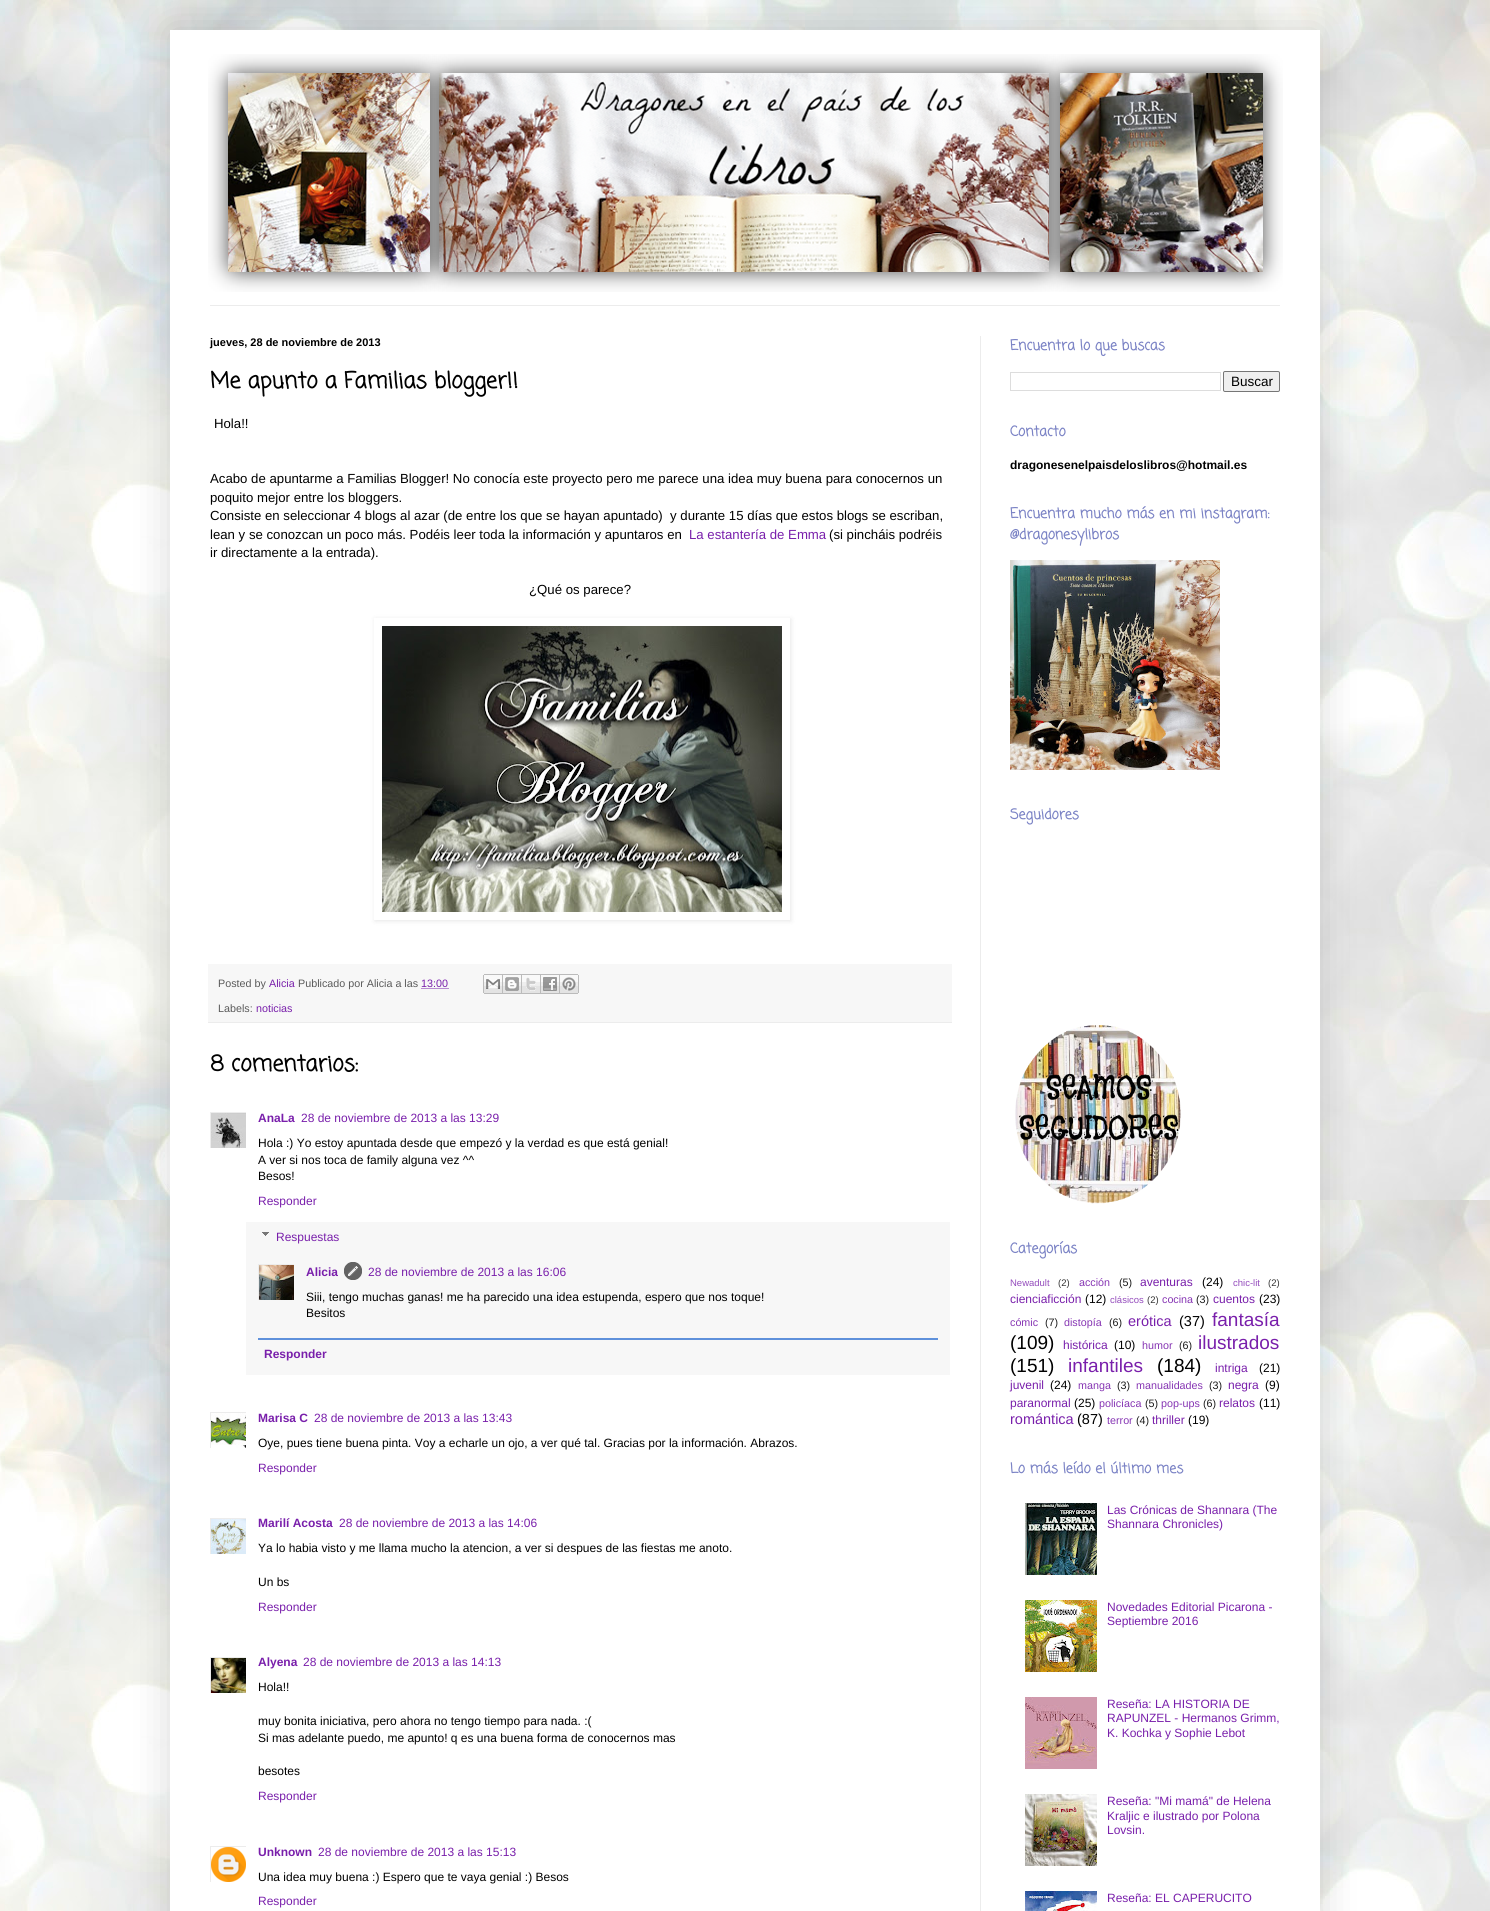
#include <cairo.h>
#include <math.h>
#include <stddef.h>


static void rgb(cairo_t *cr, int r, int g, int b)
{
	cairo_set_source_rgb(cr, r / 255.0, g / 255.0, b / 255.0);
}

static void face(cairo_t *cr, const char *family, double size, int italic, int bold)
{
	cairo_select_font_face(cr, family, italic ? CAIRO_FONT_SLANT_ITALIC : CAIRO_FONT_SLANT_NORMAL,
		bold ? CAIRO_FONT_WEIGHT_BOLD : CAIRO_FONT_WEIGHT_NORMAL);
	cairo_set_font_size(cr, size);
}

static void label(cairo_t *cr, double x, double y, const char *s)
{
	cairo_move_to(cr, x, y);
	cairo_show_text(cr, s);
}

static void rect(cairo_t *cr, double x, double y, double w, double h)
{
	cairo_rectangle(cr, x, y, w, h);
	cairo_fill(cr);
}

static void rrect(cairo_t *cr, double x, double y, double w, double h, double r)
{
	cairo_new_sub_path(cr);
	cairo_arc(cr, x + w - r, y + h - r, r, 0, M_PI / 2);
	cairo_arc(cr, x + r, y + h - r, r, M_PI / 2, M_PI);
	cairo_arc(cr, x + r, y + r, r, M_PI, 1.5 * M_PI);
	cairo_arc(cr, x + w - r, y + r, r, 1.5 * M_PI, 2 * M_PI);
	cairo_close_path(cr);
}

static void soft_shadow(cairo_t *cr, double x, double y, double w, double h, double r, double blur, double alpha)
{
	cairo_push_group_with_content(cr, CAIRO_CONTENT_ALPHA);
	cairo_set_operator(cr, CAIRO_OPERATOR_SOURCE);
	for (int i = 15; i >= -15 && fmin(w, h) + blur * i / 3 > 0; i -= 2) {
		double e = blur * i / 6;
		cairo_set_source_rgba(cr, 0, 0, 0, alpha * erfc((i - 1) / 8.5) / 2);
		rrect(cr, x - e, y - e, w + 2 * e, h + 2 * e, fmax(0, fmin(r + e + blur * .6, fmin(w, h) / 2 + e)));
		cairo_fill(cr);
	}
	cairo_pattern_t *soft = cairo_pop_group(cr);
	cairo_mask(cr, soft);
	cairo_pattern_destroy(soft);
}

static void image(cairo_t *cr, const char *path, double x, double y, double w, double h)
{
	cairo_surface_t *image = cairo_image_surface_create_from_png(path);
	cairo_save(cr);
	cairo_set_source_surface(cr, image, x, y);
	cairo_rectangle(cr, x, y, w, h);
	cairo_fill(cr);
	cairo_restore(cr);
	cairo_surface_destroy(image);
}

static void draw(cairo_t *cr) {
	rgb(cr, 255, 255, 255);
	cairo_paint(cr);
	image(cr, "image0.png", 0, 0, 1490, 1911);
	rgb(cr, 0, 0, 0);
	soft_shadow(cr, 170, 30, 1150, 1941, 0, 20, 0.15);
	rgb(cr, 255, 255, 255);
	rect(cr, 170, 30, 1150, 1881);
	image(cr, "image1.png", 208, 54, 1075, 238);
	rgb(cr, 236, 236, 236);
	rect(cr, 210, 305, 1070, 1);
	rect(cr, 980, 336, 1, 1575);
	face(cr, "Liberation Sans", 11, 0, 1);
	rgb(cr, 0, 0, 0);
	label(cr, 210, 346, "jueves, 28 de noviembre de 2013");
	face(cr, "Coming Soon", 22, 0, 1);
	label(cr, 210, 388, "Me apunto a Familias blogger!!");
	face(cr, "Liberation Sans", 13.2, 0, 0);
	label(cr, 214, 428, "Hola!!");
	label(cr, 210, 483, "Acabo de apuntarme a Familias Blogger! No conocía este proyecto pero me parece una idea muy buena para conocernos un");
	label(cr, 210, 502, "poquito mejor entre los bloggers.");
	label(cr, 210, 520, "Consiste en seleccionar 4 blogs al azar (de entre los que se hayan apuntado)  y durante 15 días que estos blogs se escriban,");
	label(cr, 210, 539, "lean y se conozcan un poco más. Podéis leer toda la información y apuntaros en");
	rgb(cr, 121, 31, 171);
	label(cr, 689, 539, "La estantería de Emma");
	rgb(cr, 0, 0, 0);
	label(cr, 829, 539, "(si pincháis podréis");
	label(cr, 210, 557, "ir directamente a la entrada).");
	label(cr, 529, 594, "¿Qué os parece?");
	cairo_save(cr);
	cairo_set_fill_rule(cr, CAIRO_FILL_RULE_EVEN_ODD);
	cairo_new_path(cr);
	cairo_move_to(cr, 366, 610);
	cairo_line_to(cr, 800, 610);
	cairo_line_to(cr, 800, 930);
	cairo_line_to(cr, 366, 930);
	cairo_close_path(cr);
	cairo_move_to(cr, 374, 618);
	cairo_line_to(cr, 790, 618);
	cairo_line_to(cr, 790, 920);
	cairo_line_to(cr, 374, 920);
	cairo_close_path(cr);
	cairo_clip(cr);
	rgb(cr, 0, 0, 0);
	soft_shadow(cr, 375, 619, 416, 302, 0, 2.5, 0.1);
	cairo_restore(cr);
	image(cr, "image2.png", 382, 626, 400, 286);
	rgb(cr, 247, 247, 247);
	rect(cr, 208, 964, 744, 58);
	rgb(cr, 236, 236, 236);
	rect(cr, 208, 1022, 744, 1);
	face(cr, "Liberation Sans", 10.75, 0, 0);
	rgb(cr, 90, 90, 90);
	label(cr, 218, 987, "Posted by");
	rgb(cr, 121, 31, 171);
	label(cr, 269, 987, "Alicia");
	rgb(cr, 90, 90, 90);
	label(cr, 298, 987, "Publicado por Alicia a las");
	cairo_new_path(cr);
	cairo_move_to(cr, 421.5, 988.5);
	cairo_line_to(cr, 448.5, 988.5);
	rgb(cr, 121, 31, 171);
	cairo_set_line_width(cr, 1);
	cairo_set_dash(cr, (double[]){1, 1}, 2, 0);
	cairo_stroke(cr);
	label(cr, 421, 987, "13:00");
	image(cr, "image3.png", 483, 974, 20, 20);
	image(cr, "image4.png", 503, 974, 19, 20);
	image(cr, "image5.png", 522, 974, 19, 20);
	image(cr, "image6.png", 541, 974, 19, 20);
	image(cr, "image7.png", 560, 974, 19, 20);
	rgb(cr, 90, 90, 90);
	label(cr, 218, 1012, "Labels:");
	rgb(cr, 121, 31, 171);
	label(cr, 256, 1012, "noticias");
	face(cr, "Coming Soon", 22, 0, 1);
	rgb(cr, 0, 0, 0);
	label(cr, 210, 1071, "8 comentarios:");
	cairo_save(cr);
	cairo_rectangle(cr, 210, 1112, 36, 36);
	cairo_clip(cr);
	cairo_rectangle(cr, 210.5, 1112.5, 37, 37);
	rgb(cr, 236, 236, 236);
	cairo_set_dash(cr, NULL, 0, 0);
	cairo_stroke(cr);
	cairo_restore(cr);
	image(cr, "image8.png", 211, 1113, 35, 35);
	face(cr, "Liberation Sans", 12, 0, 1);
	rgb(cr, 121, 31, 171);
	label(cr, 258, 1122, "AnaLa");
	face(cr, "Liberation Sans", 12, 0, 0);
	label(cr, 301, 1122, "28 de noviembre de 2013 a las 13:29");
	rgb(cr, 0, 0, 0);
	label(cr, 258, 1147, "Hola :) Yo estoy apuntada desde que empezó y la verdad es que está genial!");
	label(cr, 258, 1164, "A ver si nos toca de family alguna vez ^^");
	label(cr, 258, 1180, "Besos!");
	rgb(cr, 121, 31, 171);
	label(cr, 258, 1205, "Responder");
	rgb(cr, 247, 247, 247);
	rect(cr, 246, 1222, 704, 153);
	image(cr, "image9.png", 262, 1232, 7, 4);
	rgb(cr, 121, 31, 171);
	label(cr, 276, 1241, "Respuestas");
	cairo_save(cr);
	cairo_rectangle(cr, 258, 1264, 36, 36);
	cairo_clip(cr);
	cairo_rectangle(cr, 258.5, 1264.5, 37, 37);
	rgb(cr, 236, 236, 236);
	cairo_set_dash(cr, NULL, 0, 0);
	cairo_stroke(cr);
	cairo_restore(cr);
	image(cr, "image10.png", 259, 1265, 35, 35);
	face(cr, "Liberation Sans", 12, 0, 1);
	label(cr, 306, 1276, "Alicia");
	image(cr, "image11.png", 344, 1262, 18, 18);
	face(cr, "Liberation Sans", 12, 0, 0);
	label(cr, 368, 1276, "28 de noviembre de 2013 a las 16:06");
	rgb(cr, 0, 0, 0);
	label(cr, 306, 1301, "Siii, tengo muchas ganas! me ha parecido una idea estupenda, espero que nos toque!");
	label(cr, 306, 1317, "Besitos");
	rgb(cr, 95, 145, 219);
	rect(cr, 258, 1338, 680, 2);
	face(cr, "Liberation Sans", 12, 0, 1);
	rgb(cr, 121, 31, 171);
	label(cr, 264, 1358, "Responder");
	cairo_save(cr);
	cairo_rectangle(cr, 210, 1412, 36, 36);
	cairo_clip(cr);
	cairo_rectangle(cr, 210.5, 1412.5, 37, 37);
	rgb(cr, 236, 236, 236);
	cairo_set_dash(cr, NULL, 0, 0);
	cairo_stroke(cr);
	cairo_restore(cr);
	image(cr, "image12.png", 211, 1413, 35, 35);
	label(cr, 258, 1422, "Marisa C");
	face(cr, "Liberation Sans", 12, 0, 0);
	label(cr, 314, 1422, "28 de noviembre de 2013 a las 13:43");
	rgb(cr, 0, 0, 0);
	label(cr, 258, 1447, "Oye, pues tiene buena pinta. Voy a echarle un ojo, a ver qué tal. Gracias por la información. Abrazos.");
	rgb(cr, 121, 31, 171);
	label(cr, 258, 1472, "Responder");
	cairo_save(cr);
	cairo_rectangle(cr, 210, 1518, 36, 36);
	cairo_clip(cr);
	cairo_rectangle(cr, 210.5, 1518.5, 37, 37);
	rgb(cr, 236, 236, 236);
	cairo_set_dash(cr, NULL, 0, 0);
	cairo_stroke(cr);
	cairo_restore(cr);
	image(cr, "image13.png", 211, 1519, 35, 35);
	face(cr, "Liberation Sans", 12, 0, 1);
	label(cr, 258, 1527, "Marilí Acosta");
	face(cr, "Liberation Sans", 12, 0, 0);
	label(cr, 339, 1527, "28 de noviembre de 2013 a las 14:06");
	rgb(cr, 0, 0, 0);
	label(cr, 258, 1552, "Ya lo habia visto y me llama mucho la atencion, a ver si despues de las fiestas me anoto.");
	label(cr, 258, 1586, "Un bs");
	rgb(cr, 121, 31, 171);
	label(cr, 258, 1611, "Responder");
	cairo_save(cr);
	cairo_rectangle(cr, 210, 1657, 36, 36);
	cairo_clip(cr);
	cairo_rectangle(cr, 210.5, 1657.5, 37, 37);
	rgb(cr, 236, 236, 236);
	cairo_set_dash(cr, NULL, 0, 0);
	cairo_stroke(cr);
	cairo_restore(cr);
	image(cr, "image14.png", 211, 1658, 35, 35);
	face(cr, "Liberation Sans", 12, 0, 1);
	label(cr, 258, 1666, "Alyena");
	face(cr, "Liberation Sans", 12, 0, 0);
	label(cr, 303, 1666, "28 de noviembre de 2013 a las 14:13");
	rgb(cr, 0, 0, 0);
	label(cr, 258, 1691, "Hola!!");
	label(cr, 258, 1725, "muy bonita iniciativa, pero ahora no tengo tiempo para nada. :(");
	label(cr, 258, 1742, "Si mas adelante puedo, me apunto! q es una buena forma de conocernos mas");
	label(cr, 258, 1775, "besotes");
	rgb(cr, 121, 31, 171);
	label(cr, 258, 1800, "Responder");
	cairo_save(cr);
	cairo_rectangle(cr, 210, 1846, 36, 36);
	cairo_clip(cr);
	cairo_rectangle(cr, 210.5, 1846.5, 36, 36);
	rgb(cr, 236, 236, 236);
	cairo_set_dash(cr, NULL, 0, 0);
	cairo_stroke(cr);
	cairo_restore(cr);
	image(cr, "image15.png", 211, 1847, 35, 35);
	face(cr, "Liberation Sans", 12, 0, 1);
	label(cr, 258, 1856, "Unknown");
	face(cr, "Liberation Sans", 12, 0, 0);
	label(cr, 318, 1856, "28 de noviembre de 2013 a las 15:13");
	rgb(cr, 0, 0, 0);
	label(cr, 258, 1881, "Una idea muy buena :) Espero que te vaya genial :) Besos");
	rgb(cr, 121, 31, 171);
	label(cr, 258, 1905, "Responder");
	face(cr, "Coming Soon", 14, 0, 1);
	rgb(cr, 123, 131, 197);
	label(cr, 1010, 350, "Encuentra lo que buscas");
	cairo_rectangle(cr, 1010.5, 372.5, 210, 18);
	rgb(cr, 221, 221, 221);
	cairo_set_dash(cr, NULL, 0, 0);
	cairo_stroke(cr);
	rgb(cr, 239, 239, 239);
	rrect(cr, 1223.5, 371.5, 56, 20, 1.5);
	cairo_fill_preserve(cr);
	rgb(cr, 118, 118, 118);
	cairo_stroke(cr);
	face(cr, "Liberation Sans", 13.5, 0, 0);
	rgb(cr, 0, 0, 0);
	label(cr, 1231, 386, "Buscar");
	face(cr, "Coming Soon", 14, 0, 1);
	rgb(cr, 123, 131, 197);
	label(cr, 1010, 436, "Contacto");
	face(cr, "Liberation Sans", 12, 0, 1);
	rgb(cr, 0, 0, 0);
	label(cr, 1010, 469, "dragonesenelpaisdeloslibros@hotmail.es");
	face(cr, "Coming Soon", 14, 0, 1);
	rgb(cr, 123, 131, 197);
	label(cr, 1010, 518, "Encuentra mucho más en mi instagram:");
	label(cr, 1010, 539, "@dragonesylibros");
	image(cr, "image16.png", 1010, 560, 210, 210);
	label(cr, 1010, 819, "Seguidores");
	image(cr, "image17.png", 1015, 1025, 166, 179);
	label(cr, 1010, 1253, "Categorías");
	face(cr, "Liberation Sans", 9.5, 0, 0);
	rgb(cr, 148, 76, 188);
	label(cr, 1010, 1286, "Newadult");
	rgb(cr, 51, 51, 51);
	label(cr, 1058, 1286, "(2)");
	face(cr, "Liberation Sans", 10.75, 0, 0);
	rgb(cr, 134, 53, 179);
	label(cr, 1079, 1286, "acción");
	rgb(cr, 26, 26, 26);
	label(cr, 1119, 1286, "(5)");
	face(cr, "Liberation Sans", 12, 0, 0);
	rgb(cr, 121, 31, 171);
	label(cr, 1140, 1286, "aventuras");
	rgb(cr, 0, 0, 0);
	label(cr, 1202, 1286, "(24)");
	face(cr, "Liberation Sans", 9.5, 0, 0);
	rgb(cr, 148, 76, 188);
	label(cr, 1233, 1286, "chic-lit");
	rgb(cr, 51, 51, 51);
	label(cr, 1268, 1286, "(2)");
	face(cr, "Liberation Sans", 12, 0, 0);
	rgb(cr, 121, 31, 171);
	label(cr, 1010, 1303, "cienciaficción");
	rgb(cr, 0, 0, 0);
	label(cr, 1085, 1303, "(12)");
	face(cr, "Liberation Sans", 9.5, 0, 0);
	rgb(cr, 148, 76, 188);
	label(cr, 1110, 1303, "clásicos");
	rgb(cr, 51, 51, 51);
	label(cr, 1147, 1303, "(2)");
	face(cr, "Liberation Sans", 10.75, 0, 0);
	rgb(cr, 134, 53, 179);
	label(cr, 1162, 1303, "cocina");
	rgb(cr, 26, 26, 26);
	label(cr, 1196, 1303, "(3)");
	face(cr, "Liberation Sans", 12, 0, 0);
	rgb(cr, 121, 31, 171);
	label(cr, 1213, 1303, "cuentos");
	rgb(cr, 0, 0, 0);
	label(cr, 1259, 1303, "(23)");
	face(cr, "Liberation Sans", 10.75, 0, 0);
	rgb(cr, 134, 53, 179);
	label(cr, 1010, 1326, "cómic");
	rgb(cr, 26, 26, 26);
	label(cr, 1045, 1326, "(7)");
	rgb(cr, 134, 53, 179);
	label(cr, 1064, 1326, "distopía");
	rgb(cr, 26, 26, 26);
	label(cr, 1109, 1326, "(6)");
	face(cr, "Liberation Sans", 14.5, 0, 0);
	rgb(cr, 121, 31, 171);
	label(cr, 1128, 1326, "erótica");
	rgb(cr, 0, 0, 0);
	label(cr, 1179, 1326, "(37)");
	face(cr, "Liberation Sans", 19, 0, 0);
	rgb(cr, 121, 31, 171);
	label(cr, 1212, 1326, "fantasía");
	rgb(cr, 0, 0, 0);
	label(cr, 1010, 1349, "(109)");
	face(cr, "Liberation Sans", 12, 0, 0);
	rgb(cr, 121, 31, 171);
	label(cr, 1063, 1349, "histórica");
	rgb(cr, 0, 0, 0);
	label(cr, 1114, 1349, "(10)");
	face(cr, "Liberation Sans", 10.75, 0, 0);
	rgb(cr, 134, 53, 179);
	label(cr, 1142, 1349, "humor");
	rgb(cr, 26, 26, 26);
	label(cr, 1179, 1349, "(6)");
	face(cr, "Liberation Sans", 19, 0, 0);
	rgb(cr, 121, 31, 171);
	label(cr, 1198, 1349, "ilustrados");
	rgb(cr, 0, 0, 0);
	label(cr, 1010, 1372, "(151)");
	rgb(cr, 121, 31, 171);
	label(cr, 1068, 1372, "infantiles");
	rgb(cr, 0, 0, 0);
	label(cr, 1157, 1372, "(184)");
	face(cr, "Liberation Sans", 12, 0, 0);
	rgb(cr, 121, 31, 171);
	label(cr, 1215, 1372, "intriga");
	rgb(cr, 0, 0, 0);
	label(cr, 1259, 1372, "(21)");
	rgb(cr, 121, 31, 171);
	label(cr, 1010, 1389, "juvenil");
	rgb(cr, 0, 0, 0);
	label(cr, 1050, 1389, "(24)");
	face(cr, "Liberation Sans", 10.75, 0, 0);
	rgb(cr, 134, 53, 179);
	label(cr, 1078, 1389, "manga");
	rgb(cr, 26, 26, 26);
	label(cr, 1117, 1389, "(3)");
	rgb(cr, 134, 53, 179);
	label(cr, 1136, 1389, "manualidades");
	rgb(cr, 26, 26, 26);
	label(cr, 1209, 1389, "(3)");
	face(cr, "Liberation Sans", 12, 0, 0);
	rgb(cr, 121, 31, 171);
	label(cr, 1228, 1389, "negra");
	rgb(cr, 0, 0, 0);
	label(cr, 1265, 1389, "(9)");
	rgb(cr, 121, 31, 171);
	label(cr, 1010, 1407, "paranormal");
	rgb(cr, 0, 0, 0);
	label(cr, 1074, 1407, "(25)");
	face(cr, "Liberation Sans", 10.75, 0, 0);
	rgb(cr, 134, 53, 179);
	label(cr, 1099, 1407, "policíaca");
	rgb(cr, 26, 26, 26);
	label(cr, 1145, 1407, "(5)");
	rgb(cr, 134, 53, 179);
	label(cr, 1161, 1407, "pop-ups");
	rgb(cr, 26, 26, 26);
	label(cr, 1203, 1407, "(6)");
	face(cr, "Liberation Sans", 12, 0, 0);
	rgb(cr, 121, 31, 171);
	label(cr, 1219, 1407, "relatos");
	rgb(cr, 0, 0, 0);
	label(cr, 1259, 1407, "(11)");
	face(cr, "Liberation Sans", 14.5, 0, 0);
	rgb(cr, 121, 31, 171);
	label(cr, 1010, 1424, "romántica");
	rgb(cr, 0, 0, 0);
	label(cr, 1077, 1424, "(87)");
	face(cr, "Liberation Sans", 10.75, 0, 0);
	rgb(cr, 134, 53, 179);
	label(cr, 1107, 1424, "terror");
	rgb(cr, 26, 26, 26);
	label(cr, 1136, 1424, "(4)");
	face(cr, "Liberation Sans", 12, 0, 0);
	rgb(cr, 121, 31, 171);
	label(cr, 1152, 1424, "thriller");
	rgb(cr, 0, 0, 0);
	label(cr, 1188, 1424, "(19)");
	face(cr, "Coming Soon", 14, 0, 1);
	rgb(cr, 123, 131, 197);
	label(cr, 1010, 1473, "Lo más leído el último mes");
	image(cr, "image18.png", 1025, 1503, 72, 72);
	face(cr, "Liberation Sans", 12, 0, 0);
	rgb(cr, 121, 31, 171);
	label(cr, 1107, 1514, "Las Crónicas de Shannara (The");
	label(cr, 1107, 1528, "Shannara Chronicles)");
	image(cr, "image19.png", 1025, 1600, 72, 72);
	label(cr, 1107, 1611, "Novedades Editorial Picarona -");
	label(cr, 1107, 1625, "Septiembre 2016");
	image(cr, "image20.png", 1025, 1697, 72, 72);
	label(cr, 1107, 1708, "Reseña: LA HISTORIA DE");
	label(cr, 1107, 1722, "RAPUNZEL - Hermanos Grimm,");
	label(cr, 1107, 1737, "K. Kochka y Sophie Lebot");
	image(cr, "image21.png", 1025, 1794, 72, 72);
	label(cr, 1107, 1805, "Reseña: \"Mi mamá\" de Helena");
	label(cr, 1107, 1820, "Kraljic e ilustrado por Polona");
	label(cr, 1107, 1834, "Lovsin.");
	image(cr, "image22.png", 1025, 1891, 72, 20);
	label(cr, 1107, 1902, "Reseña: EL CAPERUCITO");
}

int main(void) {
	cairo_surface_t *surface = cairo_image_surface_create(CAIRO_FORMAT_RGB24, 1490, 1911);
	cairo_t *cr = cairo_create(surface);
	cairo_font_options_t *options = cairo_font_options_create();
	cairo_font_options_set_hint_metrics(options, CAIRO_HINT_METRICS_OFF);
	cairo_font_options_set_hint_style(options, CAIRO_HINT_STYLE_NONE);
	cairo_set_font_options(cr, options);
	cairo_set_miter_limit(cr, 4);
	draw(cr);
	cairo_surface_write_to_png(surface, "render.png");
	cairo_font_options_destroy(options);
	cairo_destroy(cr);
	cairo_surface_destroy(surface);
	return 0;
}
